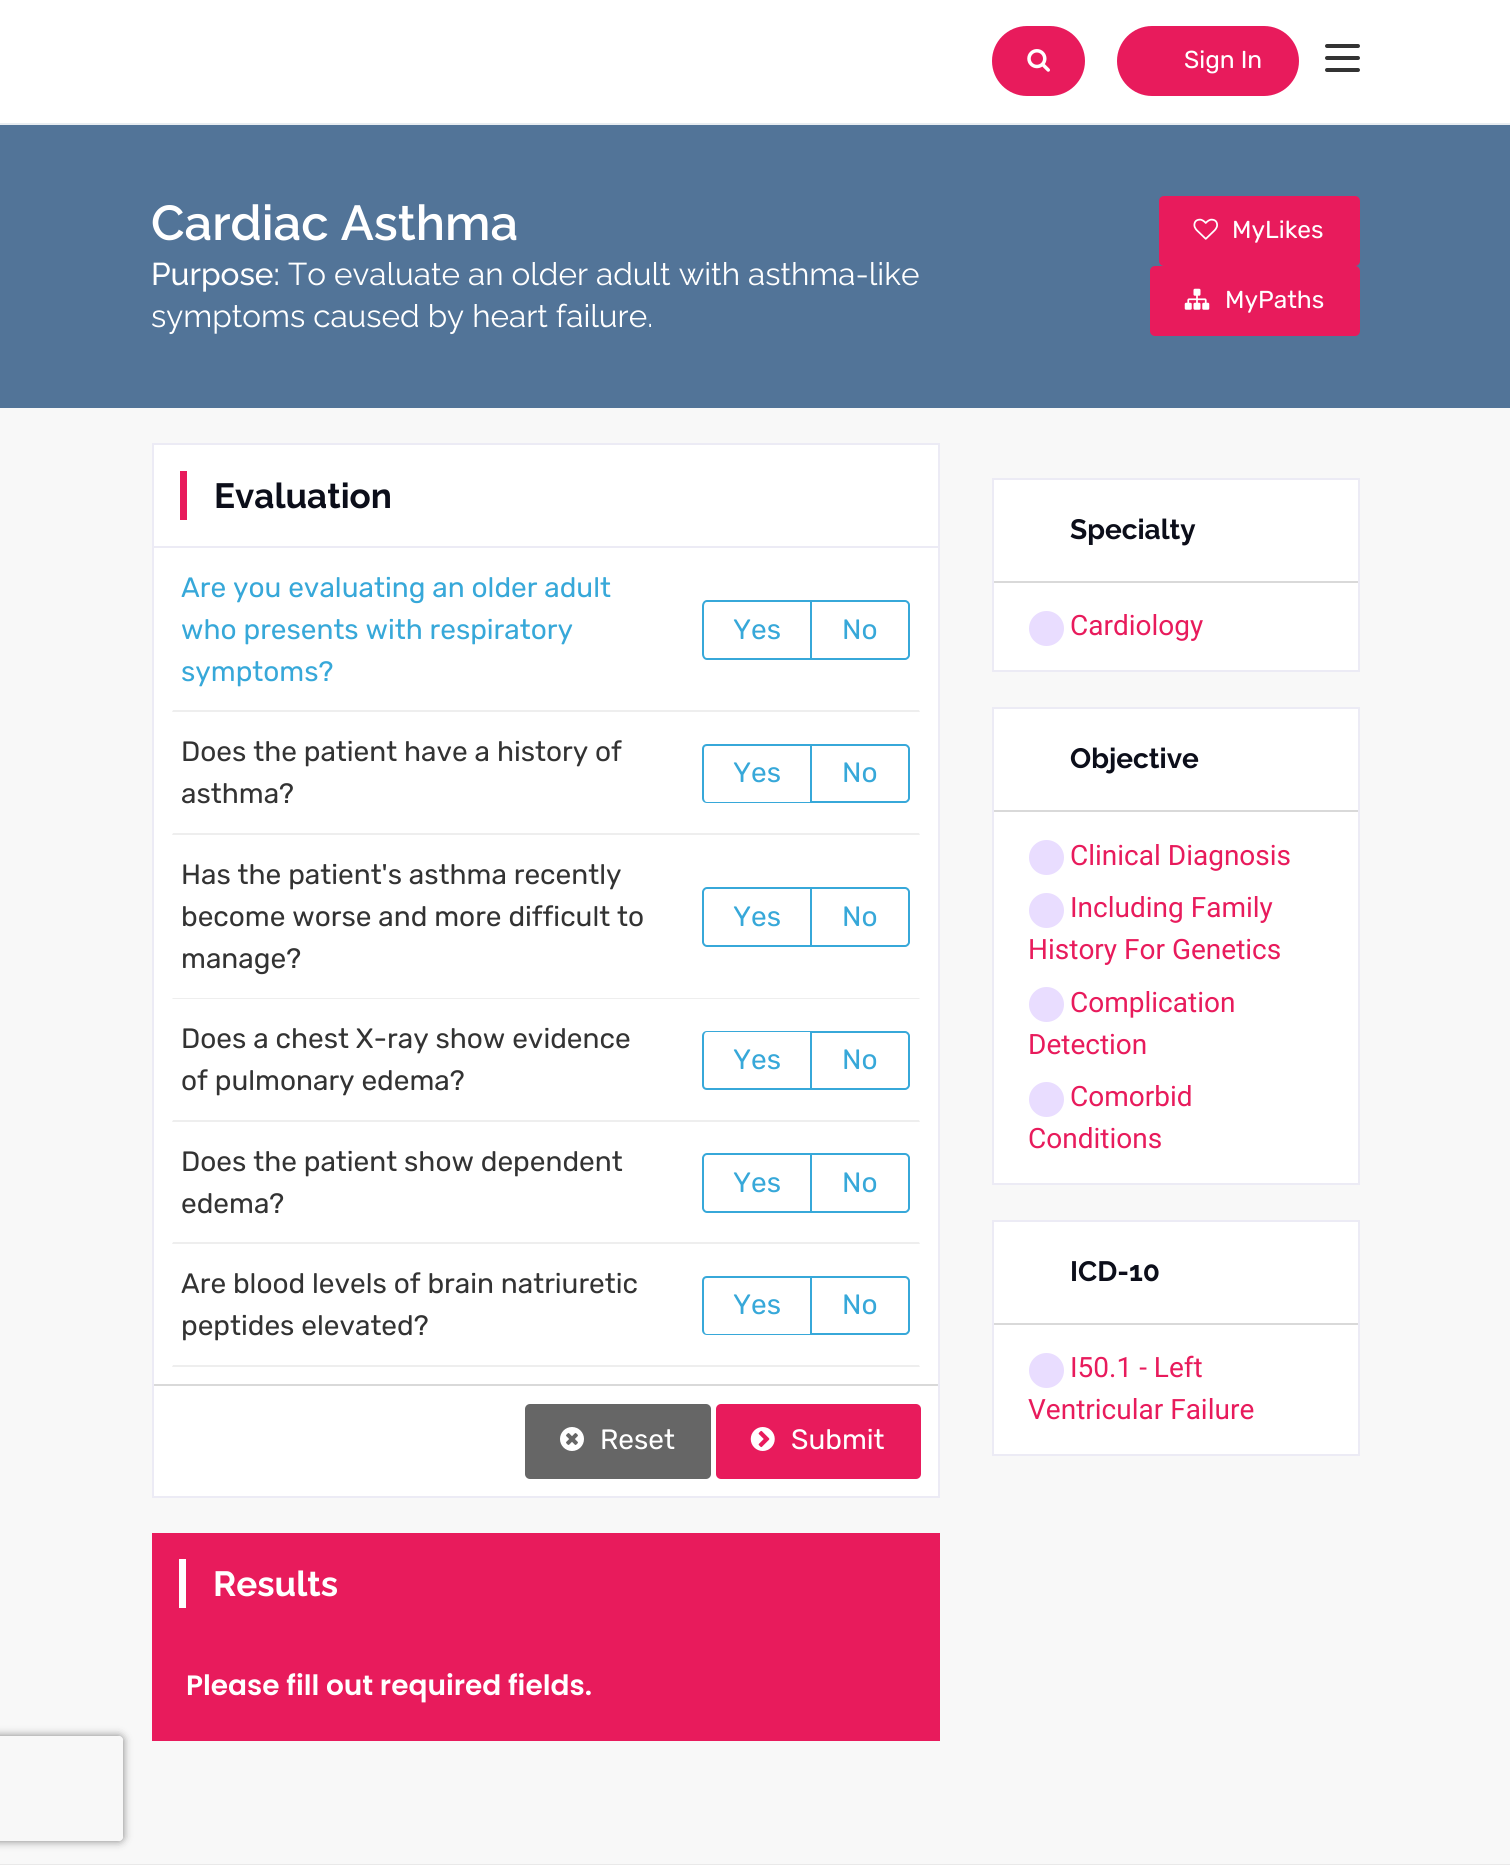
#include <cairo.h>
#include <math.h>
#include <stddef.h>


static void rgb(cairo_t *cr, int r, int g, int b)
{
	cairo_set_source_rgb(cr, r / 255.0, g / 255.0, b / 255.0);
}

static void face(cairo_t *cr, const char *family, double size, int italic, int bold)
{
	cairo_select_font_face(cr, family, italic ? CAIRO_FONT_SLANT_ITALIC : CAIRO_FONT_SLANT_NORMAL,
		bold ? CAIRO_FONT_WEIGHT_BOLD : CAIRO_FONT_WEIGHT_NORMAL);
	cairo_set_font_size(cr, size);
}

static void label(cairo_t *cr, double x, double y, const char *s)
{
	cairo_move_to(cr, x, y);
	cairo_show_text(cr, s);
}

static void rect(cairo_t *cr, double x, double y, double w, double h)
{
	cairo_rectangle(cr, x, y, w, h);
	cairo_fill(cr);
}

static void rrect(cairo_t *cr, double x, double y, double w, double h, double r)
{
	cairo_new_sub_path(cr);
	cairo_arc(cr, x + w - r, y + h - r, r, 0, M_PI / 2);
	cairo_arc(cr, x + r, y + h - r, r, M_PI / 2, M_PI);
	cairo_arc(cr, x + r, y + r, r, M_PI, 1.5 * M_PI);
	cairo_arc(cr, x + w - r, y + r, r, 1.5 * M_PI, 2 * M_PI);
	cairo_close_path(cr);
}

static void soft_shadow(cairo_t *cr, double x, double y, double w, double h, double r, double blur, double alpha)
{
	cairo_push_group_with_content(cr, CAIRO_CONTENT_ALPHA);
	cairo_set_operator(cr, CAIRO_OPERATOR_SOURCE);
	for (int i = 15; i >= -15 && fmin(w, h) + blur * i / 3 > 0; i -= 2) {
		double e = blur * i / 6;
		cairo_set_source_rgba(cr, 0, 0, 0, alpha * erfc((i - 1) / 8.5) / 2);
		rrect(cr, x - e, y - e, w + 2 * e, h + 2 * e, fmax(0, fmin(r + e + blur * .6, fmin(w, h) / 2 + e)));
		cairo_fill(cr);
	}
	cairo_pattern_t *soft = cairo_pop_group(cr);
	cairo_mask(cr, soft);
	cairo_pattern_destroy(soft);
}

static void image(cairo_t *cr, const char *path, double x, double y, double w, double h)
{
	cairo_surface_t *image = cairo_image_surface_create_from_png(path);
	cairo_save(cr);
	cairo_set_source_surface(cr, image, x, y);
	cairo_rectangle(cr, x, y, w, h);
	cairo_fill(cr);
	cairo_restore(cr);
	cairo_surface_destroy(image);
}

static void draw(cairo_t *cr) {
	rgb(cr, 248, 248, 248);
	cairo_paint(cr);
	rgb(cr, 255, 255, 255);
	rect(cr, 0, 0, 1510, 123);
	rgb(cr, 232, 237, 241);
	rect(cr, 0, 123, 1510, 2);
	rgb(cr, 232, 27, 92);
	rrect(cr, 992, 26, 93, 70, 35);
	cairo_fill(cr);
	image(cr, "image0.png", 1027, 49, 23, 23);
	rrect(cr, 1117, 26, 182, 70, 35);
	cairo_fill(cr);
	face(cr, "Rubik", 24.5, 0, 0);
	rgb(cr, 255, 255, 255);
	label(cr, 1184, 68, "Sign In");
	rgb(cr, 51, 51, 51);
	rrect(cr, 1325, 44, 35, 4, 2);
	cairo_fill(cr);
	rrect(cr, 1325, 56, 35, 4, 2);
	cairo_fill(cr);
	rrect(cr, 1325, 68, 35, 4, 2);
	cairo_fill(cr);
	rgb(cr, 82, 116, 152);
	rect(cr, 0, 125, 1510, 283);
	face(cr, "Raleway SemiBold", 49, 0, 0);
	rgb(cr, 255, 255, 255);
	label(cr, 151, 240, "Cardiac Asthma");
	face(cr, "Raleway Medium", 31.5, 0, 0);
	label(cr, 151, 285, "Purpose:");
	face(cr, "Raleway", 31.5, 0, 0);
	label(cr, 288, 285, "To evaluate an older adult with asthma-like");
	label(cr, 151, 327, "symptoms caused by heart failure.");
	rgb(cr, 232, 27, 92);
	rrect(cr, 1159, 196, 201, 70, 5);
	cairo_fill(cr);
	image(cr, "image1.png", 1193, 218, 25, 22);
	face(cr, "Rubik", 24.5, 0, 0);
	rgb(cr, 255, 255, 255);
	label(cr, 1232, 238, "MyLikes");
	rgb(cr, 232, 27, 92);
	rrect(cr, 1150, 266, 210, 70, 5);
	cairo_fill(cr);
	image(cr, "image2.png", 1184, 288, 26, 22);
	rgb(cr, 255, 255, 255);
	label(cr, 1225, 308, "MyPaths");
	cairo_rectangle(cr, 153, 444, 786, 103);
	cairo_fill_preserve(cr);
	rgb(cr, 236, 235, 245);
	cairo_stroke(cr);
	rgb(cr, 232, 27, 92);
	rect(cr, 180, 471, 7, 49);
	face(cr, "Raleway", 35, 0, 1);
	rgb(cr, 12, 14, 26);
	label(cr, 214, 508, "Evaluation");
	rgb(cr, 255, 255, 255);
	cairo_rectangle(cr, 153, 547, 786, 950);
	cairo_fill_preserve(cr);
	rgb(cr, 236, 235, 245);
	cairo_stroke(cr);
	rgb(cr, 238, 238, 238);
	cairo_new_path(cr);
	cairo_move_to(cr, 920, 712);
	cairo_line_to(cr, 172, 712);
	cairo_line_to(cr, 173, 710);
	cairo_line_to(cr, 919, 710);
	cairo_close_path(cr);
	cairo_fill(cr);
	face(cr, "Rubik", 28, 0, 0);
	rgb(cr, 55, 168, 217);
	label(cr, 181, 597, "Are you evaluating an older adult");
	label(cr, 181, 639, "who presents with respiratory");
	label(cr, 181, 681, "symptoms?");
	cairo_set_fill_rule(cr, CAIRO_FILL_RULE_EVEN_ODD);
	cairo_new_path(cr);
	cairo_move_to(cr, 707, 600);
	cairo_line_to(cr, 810, 600);
	cairo_line_to(cr, 810, 660);
	cairo_line_to(cr, 707, 660);
	cairo_curve_to(cr, 704, 660, 702, 657, 702, 654);
	cairo_line_to(cr, 702, 606);
	cairo_curve_to(cr, 702, 603, 704, 600, 707, 600);
	cairo_close_path(cr);
	cairo_move_to(cr, 707, 602);
	cairo_line_to(cr, 810, 602);
	cairo_line_to(cr, 810, 658);
	cairo_line_to(cr, 707, 658);
	cairo_curve_to(cr, 705, 658, 704, 656, 704, 654);
	cairo_line_to(cr, 704, 606);
	cairo_curve_to(cr, 704, 604, 705, 602, 707, 602);
	cairo_close_path(cr);
	cairo_fill(cr);
	label(cr, 733, 639, "Yes");
	cairo_new_path(cr);
	cairo_move_to(cr, 811, 601);
	cairo_line_to(cr, 905, 601);
	cairo_curve_to(cr, 907, 601, 909, 603, 909, 605);
	cairo_line_to(cr, 909, 655);
	cairo_curve_to(cr, 909, 657, 907, 659, 905, 659);
	cairo_line_to(cr, 811, 659);
	cairo_close_path(cr);
	cairo_stroke(cr);
	label(cr, 842, 639, "No");
	rgb(cr, 238, 238, 238);
	cairo_set_fill_rule(cr, CAIRO_FILL_RULE_WINDING);
	cairo_new_path(cr);
	cairo_move_to(cr, 920, 835);
	cairo_line_to(cr, 172, 835);
	cairo_line_to(cr, 173, 833);
	cairo_line_to(cr, 919, 833);
	cairo_close_path(cr);
	cairo_fill(cr);
	rgb(cr, 51, 51, 51);
	label(cr, 181, 761, "Does the patient have a history of");
	label(cr, 181, 803, "asthma?");
	rgb(cr, 55, 168, 217);
	cairo_set_fill_rule(cr, CAIRO_FILL_RULE_EVEN_ODD);
	cairo_new_path(cr);
	cairo_move_to(cr, 707, 744);
	cairo_line_to(cr, 810, 744);
	cairo_line_to(cr, 810, 803);
	cairo_line_to(cr, 707, 803);
	cairo_curve_to(cr, 704, 803, 702, 801, 702, 798);
	cairo_line_to(cr, 702, 749);
	cairo_curve_to(cr, 702, 746, 704, 744, 707, 744);
	cairo_close_path(cr);
	cairo_move_to(cr, 707, 746);
	cairo_line_to(cr, 810, 746);
	cairo_line_to(cr, 810, 802);
	cairo_line_to(cr, 707, 802);
	cairo_curve_to(cr, 705, 802, 704, 800, 704, 798);
	cairo_line_to(cr, 704, 749);
	cairo_curve_to(cr, 704, 747, 705, 746, 707, 746);
	cairo_close_path(cr);
	cairo_fill(cr);
	label(cr, 733, 782, "Yes");
	cairo_new_path(cr);
	cairo_move_to(cr, 811, 745);
	cairo_line_to(cr, 905, 745);
	cairo_curve_to(cr, 907, 745, 909, 747, 909, 749);
	cairo_line_to(cr, 909, 798);
	cairo_curve_to(cr, 909, 800, 907, 802, 905, 802);
	cairo_line_to(cr, 811, 802);
	cairo_close_path(cr);
	cairo_stroke(cr);
	label(cr, 842, 782, "No");
	rgb(cr, 238, 238, 238);
	cairo_set_fill_rule(cr, CAIRO_FILL_RULE_WINDING);
	cairo_new_path(cr);
	cairo_move_to(cr, 920, 999);
	cairo_line_to(cr, 172, 999);
	cairo_line_to(cr, 173, 998);
	cairo_line_to(cr, 919, 998);
	cairo_close_path(cr);
	cairo_fill(cr);
	rgb(cr, 51, 51, 51);
	label(cr, 181, 884, "Has the patient's asthma recently");
	label(cr, 181, 926, "become worse and more difficult to");
	label(cr, 181, 968, "manage?");
	rgb(cr, 55, 168, 217);
	cairo_set_fill_rule(cr, CAIRO_FILL_RULE_EVEN_ODD);
	cairo_new_path(cr);
	cairo_move_to(cr, 707, 887);
	cairo_line_to(cr, 810, 887);
	cairo_line_to(cr, 810, 947);
	cairo_line_to(cr, 707, 947);
	cairo_curve_to(cr, 704, 947, 702, 944, 702, 942);
	cairo_line_to(cr, 702, 892);
	cairo_curve_to(cr, 702, 890, 704, 887, 707, 887);
	cairo_close_path(cr);
	cairo_move_to(cr, 707, 889);
	cairo_line_to(cr, 810, 889);
	cairo_line_to(cr, 810, 945);
	cairo_line_to(cr, 707, 945);
	cairo_curve_to(cr, 705, 945, 704, 943, 704, 942);
	cairo_line_to(cr, 704, 892);
	cairo_curve_to(cr, 704, 891, 705, 889, 707, 889);
	cairo_close_path(cr);
	cairo_fill(cr);
	label(cr, 733, 926, "Yes");
	cairo_new_path(cr);
	cairo_move_to(cr, 811, 888);
	cairo_line_to(cr, 905, 888);
	cairo_curve_to(cr, 907, 888, 909, 890, 909, 892);
	cairo_line_to(cr, 909, 942);
	cairo_curve_to(cr, 909, 944, 907, 946, 905, 946);
	cairo_line_to(cr, 811, 946);
	cairo_close_path(cr);
	cairo_stroke(cr);
	label(cr, 842, 926, "No");
	rgb(cr, 238, 238, 238);
	cairo_set_fill_rule(cr, CAIRO_FILL_RULE_WINDING);
	cairo_new_path(cr);
	cairo_move_to(cr, 920, 1122);
	cairo_line_to(cr, 172, 1122);
	cairo_line_to(cr, 173, 1120);
	cairo_line_to(cr, 919, 1120);
	cairo_close_path(cr);
	cairo_fill(cr);
	rgb(cr, 51, 51, 51);
	label(cr, 181, 1048, "Does a chest X-ray show evidence");
	label(cr, 181, 1090, "of pulmonary edema?");
	rgb(cr, 55, 168, 217);
	cairo_set_fill_rule(cr, CAIRO_FILL_RULE_EVEN_ODD);
	cairo_new_path(cr);
	cairo_move_to(cr, 707, 1031);
	cairo_line_to(cr, 810, 1031);
	cairo_line_to(cr, 810, 1090);
	cairo_line_to(cr, 707, 1090);
	cairo_curve_to(cr, 704, 1090, 702, 1088, 702, 1085);
	cairo_line_to(cr, 702, 1036);
	cairo_curve_to(cr, 702, 1033, 704, 1031, 707, 1031);
	cairo_close_path(cr);
	cairo_move_to(cr, 707, 1032);
	cairo_line_to(cr, 810, 1032);
	cairo_line_to(cr, 810, 1088);
	cairo_line_to(cr, 707, 1088);
	cairo_curve_to(cr, 705, 1088, 704, 1087, 704, 1085);
	cairo_line_to(cr, 704, 1036);
	cairo_curve_to(cr, 704, 1034, 705, 1032, 707, 1032);
	cairo_close_path(cr);
	cairo_fill(cr);
	label(cr, 733, 1069, "Yes");
	cairo_new_path(cr);
	cairo_move_to(cr, 811, 1032);
	cairo_line_to(cr, 905, 1032);
	cairo_curve_to(cr, 907, 1032, 909, 1034, 909, 1036);
	cairo_line_to(cr, 909, 1085);
	cairo_curve_to(cr, 909, 1087, 907, 1089, 905, 1089);
	cairo_line_to(cr, 811, 1089);
	cairo_close_path(cr);
	cairo_stroke(cr);
	label(cr, 842, 1069, "No");
	rgb(cr, 238, 238, 238);
	cairo_set_fill_rule(cr, CAIRO_FILL_RULE_WINDING);
	cairo_new_path(cr);
	cairo_move_to(cr, 920, 1244);
	cairo_line_to(cr, 172, 1244);
	cairo_line_to(cr, 173, 1242);
	cairo_line_to(cr, 919, 1242);
	cairo_close_path(cr);
	cairo_fill(cr);
	rgb(cr, 51, 51, 51);
	label(cr, 181, 1171, "Does the patient show dependent");
	label(cr, 181, 1213, "edema?");
	rgb(cr, 55, 168, 217);
	cairo_set_fill_rule(cr, CAIRO_FILL_RULE_EVEN_ODD);
	cairo_new_path(cr);
	cairo_move_to(cr, 707, 1153);
	cairo_line_to(cr, 810, 1153);
	cairo_line_to(cr, 810, 1213);
	cairo_line_to(cr, 707, 1213);
	cairo_curve_to(cr, 704, 1213, 702, 1210, 702, 1208);
	cairo_line_to(cr, 702, 1158);
	cairo_curve_to(cr, 702, 1156, 704, 1153, 707, 1153);
	cairo_close_path(cr);
	cairo_move_to(cr, 707, 1155);
	cairo_line_to(cr, 810, 1155);
	cairo_line_to(cr, 810, 1211);
	cairo_line_to(cr, 707, 1211);
	cairo_curve_to(cr, 705, 1211, 704, 1209, 704, 1208);
	cairo_line_to(cr, 704, 1158);
	cairo_curve_to(cr, 704, 1157, 705, 1155, 707, 1155);
	cairo_close_path(cr);
	cairo_fill(cr);
	label(cr, 733, 1192, "Yes");
	cairo_new_path(cr);
	cairo_move_to(cr, 811, 1154);
	cairo_line_to(cr, 905, 1154);
	cairo_curve_to(cr, 907, 1154, 909, 1156, 909, 1158);
	cairo_line_to(cr, 909, 1208);
	cairo_curve_to(cr, 909, 1210, 907, 1212, 905, 1212);
	cairo_line_to(cr, 811, 1212);
	cairo_close_path(cr);
	cairo_stroke(cr);
	label(cr, 842, 1192, "No");
	rgb(cr, 238, 238, 238);
	cairo_set_fill_rule(cr, CAIRO_FILL_RULE_WINDING);
	cairo_new_path(cr);
	cairo_move_to(cr, 920, 1367);
	cairo_line_to(cr, 172, 1367);
	cairo_line_to(cr, 173, 1365);
	cairo_line_to(cr, 919, 1365);
	cairo_close_path(cr);
	cairo_fill(cr);
	rgb(cr, 51, 51, 51);
	label(cr, 181, 1293, "Are blood levels of brain natriuretic");
	label(cr, 181, 1335, "peptides elevated?");
	rgb(cr, 55, 168, 217);
	cairo_set_fill_rule(cr, CAIRO_FILL_RULE_EVEN_ODD);
	cairo_new_path(cr);
	cairo_move_to(cr, 707, 1276);
	cairo_line_to(cr, 810, 1276);
	cairo_line_to(cr, 810, 1335);
	cairo_line_to(cr, 707, 1335);
	cairo_curve_to(cr, 704, 1335, 702, 1333, 702, 1330);
	cairo_line_to(cr, 702, 1281);
	cairo_curve_to(cr, 702, 1278, 704, 1276, 707, 1276);
	cairo_close_path(cr);
	cairo_move_to(cr, 707, 1278);
	cairo_line_to(cr, 810, 1278);
	cairo_line_to(cr, 810, 1334);
	cairo_line_to(cr, 707, 1334);
	cairo_curve_to(cr, 705, 1334, 704, 1332, 704, 1330);
	cairo_line_to(cr, 704, 1281);
	cairo_curve_to(cr, 704, 1279, 705, 1278, 707, 1278);
	cairo_close_path(cr);
	cairo_fill(cr);
	label(cr, 733, 1314, "Yes");
	cairo_new_path(cr);
	cairo_move_to(cr, 811, 1277);
	cairo_line_to(cr, 905, 1277);
	cairo_curve_to(cr, 907, 1277, 909, 1279, 909, 1281);
	cairo_line_to(cr, 909, 1330);
	cairo_curve_to(cr, 909, 1332, 907, 1334, 905, 1334);
	cairo_line_to(cr, 811, 1334);
	cairo_close_path(cr);
	cairo_stroke(cr);
	label(cr, 842, 1314, "No");
	rgb(cr, 217, 217, 217);
	rect(cr, 154, 1384, 784, 2);
	rgb(cr, 102, 102, 102);
	rrect(cr, 525, 1404, 186, 75, 5);
	cairo_fill(cr);
	image(cr, "image3.png", 560, 1427, 24, 24);
	rgb(cr, 255, 255, 255);
	label(cr, 600, 1449, "Reset");
	rgb(cr, 232, 27, 92);
	rrect(cr, 716, 1404, 205, 75, 5);
	cairo_fill(cr);
	image(cr, "image4.png", 750, 1427, 25, 24);
	rgb(cr, 255, 255, 255);
	label(cr, 791, 1449, "Submit");
	rgb(cr, 232, 27, 92);
	rect(cr, 152, 1533, 788, 208);
	rgb(cr, 255, 255, 255);
	rect(cr, 179, 1559, 7, 49);
	face(cr, "Raleway", 35, 0, 1);
	label(cr, 213, 1596, "Results");
	face(cr, "Poppins SemiBold", 28, 0, 0);
	label(cr, 186, 1695, "Please fill out required fields.");
	cairo_rectangle(cr, 993, 479, 366, 192);
	cairo_fill_preserve(cr);
	rgb(cr, 236, 235, 245);
	cairo_stroke(cr);
	rgb(cr, 217, 217, 217);
	rect(cr, 994, 581, 364, 2);
	face(cr, "Raleway", 28, 0, 1);
	rgb(cr, 12, 14, 26);
	label(cr, 1070, 539, "Specialty");
	rgb(cr, 233, 221, 255);
	cairo_new_path(cr);
	cairo_arc(cr, 1046.5, 628.5, 17.5, 0, 2 * M_PI);
	cairo_fill(cr);
	face(cr, "Roboto", 28, 0, 0);
	rgb(cr, 232, 27, 92);
	label(cr, 1070, 635, "Cardiology");
	rgb(cr, 255, 255, 255);
	cairo_rectangle(cr, 993, 708, 366, 476);
	cairo_fill_preserve(cr);
	rgb(cr, 236, 235, 245);
	cairo_stroke(cr);
	rgb(cr, 217, 217, 217);
	rect(cr, 994, 810, 364, 2);
	face(cr, "Raleway", 28, 0, 1);
	rgb(cr, 12, 14, 26);
	label(cr, 1070, 768, "Objective");
	rgb(cr, 233, 221, 255);
	cairo_new_path(cr);
	cairo_arc(cr, 1046.5, 857.5, 17.5, 0, 2 * M_PI);
	cairo_fill(cr);
	face(cr, "Roboto", 28, 0, 0);
	rgb(cr, 232, 27, 92);
	label(cr, 1070, 865, "Clinical Diagnosis");
	rgb(cr, 233, 221, 255);
	cairo_new_path(cr);
	cairo_arc(cr, 1046.5, 910.5, 17.5, 0, 2 * M_PI);
	cairo_fill(cr);
	rgb(cr, 232, 27, 92);
	label(cr, 1070, 917, "Including Family");
	label(cr, 1028, 959, "History For Genetics");
	rgb(cr, 233, 221, 255);
	cairo_new_path(cr);
	cairo_arc(cr, 1046.5, 1004.5, 17.5, 0, 2 * M_PI);
	cairo_fill(cr);
	rgb(cr, 232, 27, 92);
	label(cr, 1070, 1012, "Complication");
	label(cr, 1028, 1054, "Detection");
	rgb(cr, 233, 221, 255);
	cairo_new_path(cr);
	cairo_arc(cr, 1046.5, 1099.5, 17.5, 0, 2 * M_PI);
	cairo_fill(cr);
	rgb(cr, 232, 27, 92);
	label(cr, 1070, 1106, "Comorbid");
	label(cr, 1028, 1148, "Conditions");
	rgb(cr, 255, 255, 255);
	cairo_rectangle(cr, 993, 1221, 366, 234);
	cairo_fill_preserve(cr);
	rgb(cr, 236, 235, 245);
	cairo_stroke(cr);
	rgb(cr, 217, 217, 217);
	rect(cr, 994, 1323, 364, 2);
	face(cr, "Raleway", 28, 0, 1);
	rgb(cr, 12, 14, 26);
	label(cr, 1070, 1281, "ICD-10");
	rgb(cr, 233, 221, 255);
	cairo_new_path(cr);
	cairo_arc(cr, 1046.5, 1370.5, 17.5, 0, 2 * M_PI);
	cairo_fill(cr);
	face(cr, "Roboto", 28, 0, 0);
	rgb(cr, 232, 27, 92);
	label(cr, 1070, 1377, "I50.1 - Left");
	label(cr, 1028, 1419, "Ventricular Failure");
	rgb(cr, 233, 233, 233);
	rect(cr, 0, 1864, 1510, 1);
	cairo_save(cr);
	cairo_new_path(cr);
	cairo_move_to(cr, 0, 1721);
	cairo_line_to(cr, 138, 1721);
	cairo_line_to(cr, 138, 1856);
	cairo_line_to(cr, 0, 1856);
	cairo_close_path(cr);
	cairo_move_to(cr, -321, 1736);
	cairo_line_to(cr, 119, 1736);
	cairo_curve_to(cr, 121, 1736, 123, 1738, 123, 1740);
	cairo_line_to(cr, 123, 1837);
	cairo_curve_to(cr, 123, 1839, 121, 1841, 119, 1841);
	cairo_line_to(cr, -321, 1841);
	cairo_curve_to(cr, -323, 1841, -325, 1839, -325, 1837);
	cairo_line_to(cr, -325, 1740);
	cairo_curve_to(cr, -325, 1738, -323, 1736, -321, 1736);
	cairo_close_path(cr);
	cairo_clip(cr);
	rgb(cr, 128, 128, 128);
	soft_shadow(cr, -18, 1736, 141, 105, 4, 4.5, 1);
	cairo_restore(cr);
}

int main(void) {
	cairo_surface_t *surface = cairo_image_surface_create(CAIRO_FORMAT_RGB24, 1510, 1865);
	cairo_t *cr = cairo_create(surface);
	cairo_font_options_t *options = cairo_font_options_create();
	cairo_font_options_set_hint_metrics(options, CAIRO_HINT_METRICS_OFF);
	cairo_font_options_set_hint_style(options, CAIRO_HINT_STYLE_NONE);
	cairo_set_font_options(cr, options);
	cairo_set_miter_limit(cr, 4);
	draw(cr);
	cairo_surface_write_to_png(surface, "render.png");
	cairo_font_options_destroy(options);
	cairo_destroy(cr);
	cairo_surface_destroy(surface);
	return 0;
}
